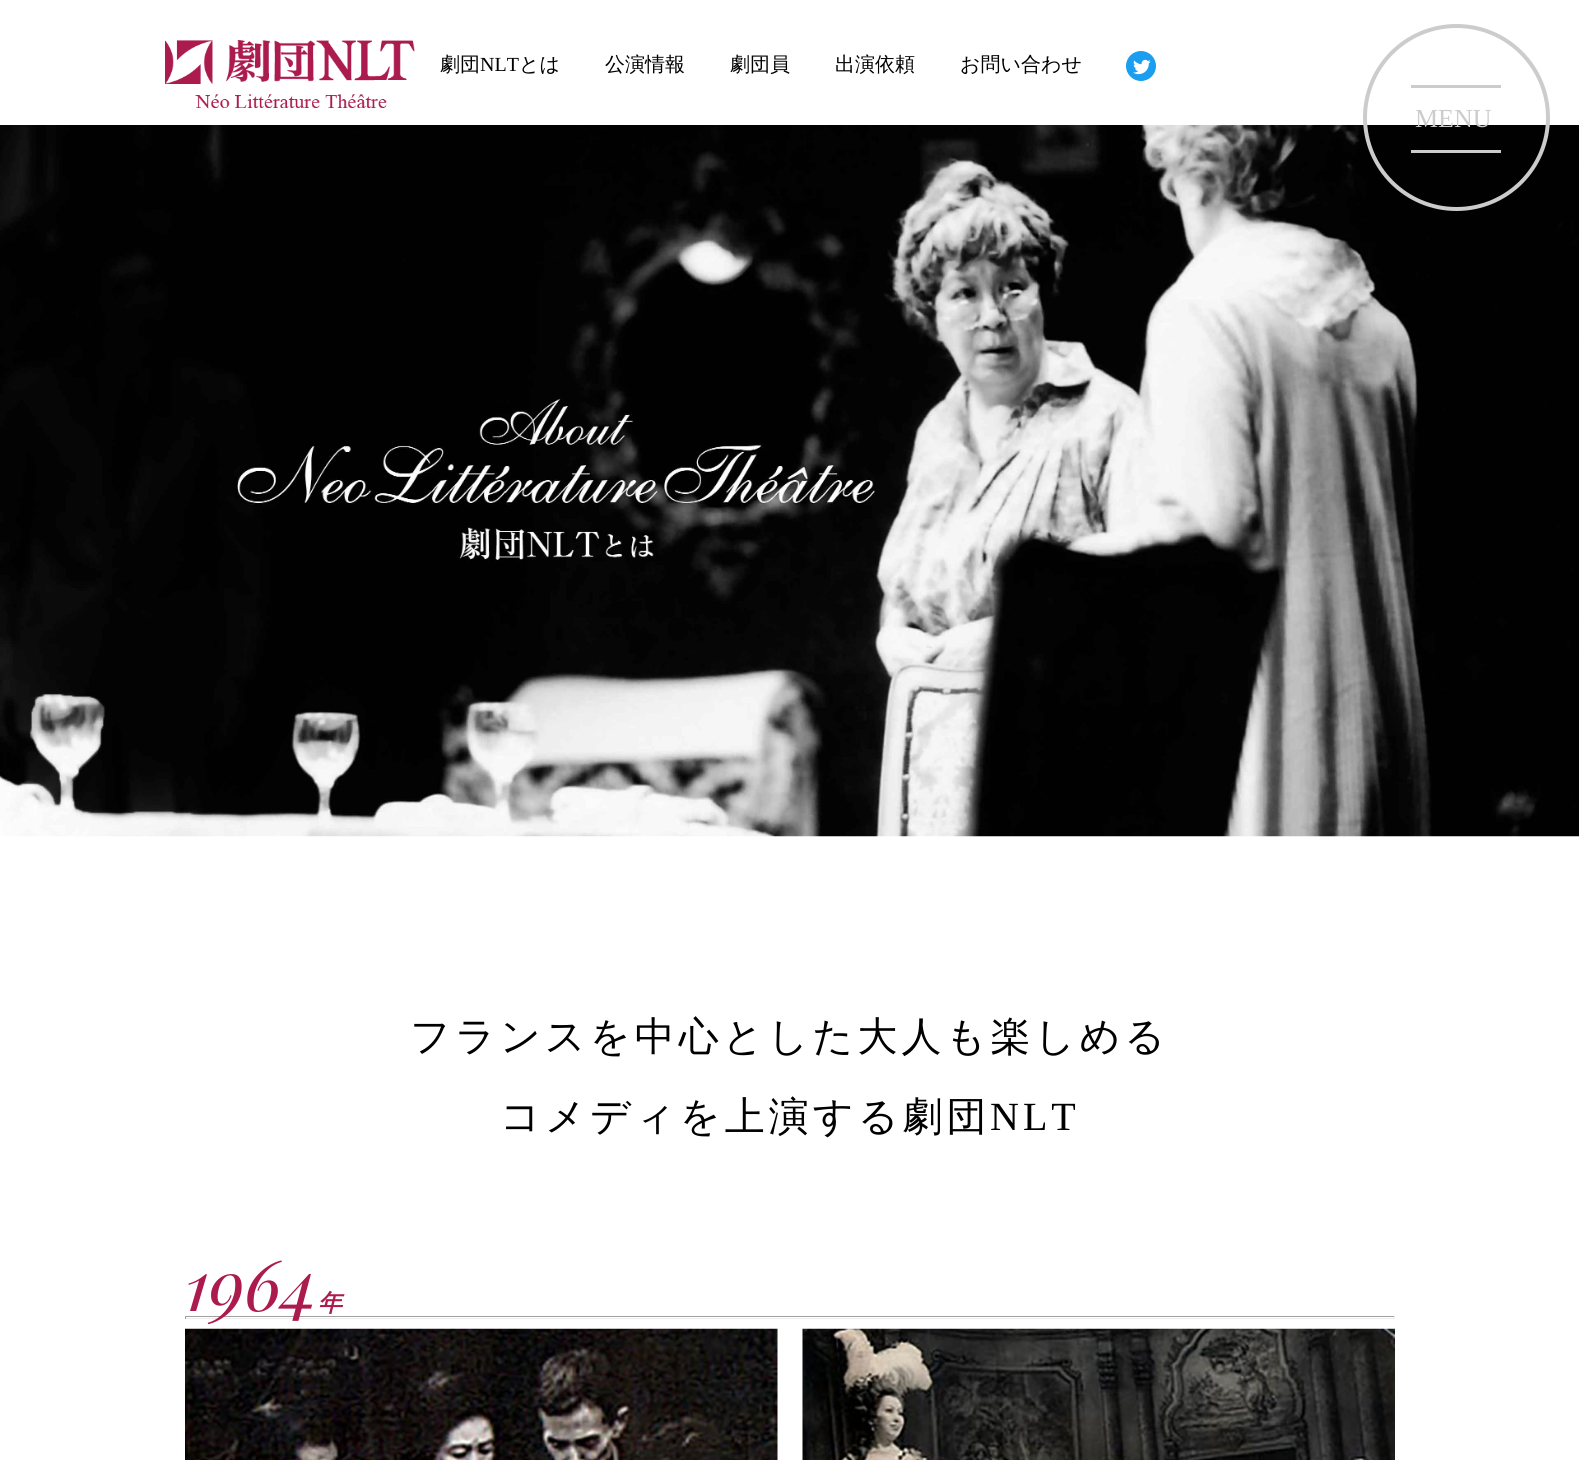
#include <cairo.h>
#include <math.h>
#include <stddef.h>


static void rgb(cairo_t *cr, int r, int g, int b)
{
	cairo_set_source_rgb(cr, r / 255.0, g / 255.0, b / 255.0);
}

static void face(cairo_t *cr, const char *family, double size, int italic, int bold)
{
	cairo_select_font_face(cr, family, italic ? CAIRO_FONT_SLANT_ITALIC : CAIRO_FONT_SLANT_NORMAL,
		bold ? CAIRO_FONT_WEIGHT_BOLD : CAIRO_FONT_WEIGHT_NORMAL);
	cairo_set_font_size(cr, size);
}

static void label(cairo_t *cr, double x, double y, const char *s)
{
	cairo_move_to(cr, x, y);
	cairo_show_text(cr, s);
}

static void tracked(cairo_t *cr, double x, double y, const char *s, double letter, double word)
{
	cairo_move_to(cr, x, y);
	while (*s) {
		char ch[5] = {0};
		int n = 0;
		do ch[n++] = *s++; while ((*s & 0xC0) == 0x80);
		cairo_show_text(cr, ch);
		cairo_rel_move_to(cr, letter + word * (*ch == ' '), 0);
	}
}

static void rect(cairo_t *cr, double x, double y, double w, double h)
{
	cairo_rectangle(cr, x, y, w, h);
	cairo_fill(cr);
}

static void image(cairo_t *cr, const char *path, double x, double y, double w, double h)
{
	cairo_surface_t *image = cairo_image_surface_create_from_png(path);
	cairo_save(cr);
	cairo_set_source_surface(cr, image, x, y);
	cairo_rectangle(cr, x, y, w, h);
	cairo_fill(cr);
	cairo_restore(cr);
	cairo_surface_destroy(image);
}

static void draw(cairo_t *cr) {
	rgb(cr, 255, 255, 255);
	cairo_paint(cr);
	image(cr, "image0.png", 165, 40, 250, 69);
	face(cr, "WenQuanYi Zen Hei Medium", 20, 0, 0);
	rgb(cr, 0, 0, 0);
	label(cr, 440, 71, "劇団");
	face(cr, "Liberation Serif", 20, 0, 0);
	label(cr, 480, 71, "NLT");
	face(cr, "WenQuanYi Zen Hei Medium", 20, 0, 0);
	label(cr, 519, 71, "とは");
	label(cr, 605, 71, "公演情報");
	label(cr, 730, 71, "劇団員");
	label(cr, 835, 71, "出演依頼");
	label(cr, 960, 71, "お問い合わせ");
	image(cr, "image1.png", 1126, 51, 30, 30);
	image(cr, "image2.png", 0, 125, 1579, 712);
	cairo_arc(cr, 1456.5, 117.5, 91.5, 0, 2 * M_PI);
	rgb(cr, 204, 204, 204);
	cairo_set_line_width(cr, 4);
	cairo_stroke(cr);
	rect(cr, 1411, 85, 90, 3);
	face(cr, "Liberation Serif", 26, 0, 0);
	label(cr, 1415, 127, "MENU");
	rect(cr, 1411, 150, 90, 3);
	face(cr, "WenQuanYi Zen Hei Medium", 40, 0, 0);
	rgb(cr, 0, 0, 0);
	tracked(cr, 410, 1050, "フランスを中心とした大人も楽しめる", 4, 0);
	tracked(cr, 500, 1130, "コメディを上演する劇団", 4, 0);
	face(cr, "Liberation Serif", 40, 0, 0);
	tracked(cr, 990, 1130, "NLT", 4, 0);
	rgb(cr, 159, 159, 159);
	rect(cr, 185, 1316, 1210, 1);
	rgb(cr, 238, 238, 238);
	rect(cr, 1394, 1316, 1, 3);
	rect(cr, 185, 1318, 1210, 1);
	face(cr, "Playfair Display", 70, 1, 0);
	rgb(cr, 172, 27, 78);
	label(cr, 185, 1311, "1964");
	face(cr, "WenQuanYi Zen Hei", 24, 1, 1);
	label(cr, 318, 1311, "年");
	rgb(cr, 159, 159, 159);
	rect(cr, 185, 1316, 1, 3);
	image(cr, "image3.png", 185, 1328, 593, 132);
	image(cr, "image4.png", 802, 1328, 593, 132);
}

int main(void) {
	cairo_surface_t *surface = cairo_image_surface_create(CAIRO_FORMAT_RGB24, 1579, 1460);
	cairo_t *cr = cairo_create(surface);
	cairo_font_options_t *options = cairo_font_options_create();
	cairo_font_options_set_hint_metrics(options, CAIRO_HINT_METRICS_OFF);
	cairo_font_options_set_hint_style(options, CAIRO_HINT_STYLE_NONE);
	cairo_set_font_options(cr, options);
	cairo_set_miter_limit(cr, 4);
	draw(cr);
	cairo_surface_write_to_png(surface, "render.png");
	cairo_font_options_destroy(options);
	cairo_destroy(cr);
	cairo_surface_destroy(surface);
	return 0;
}
